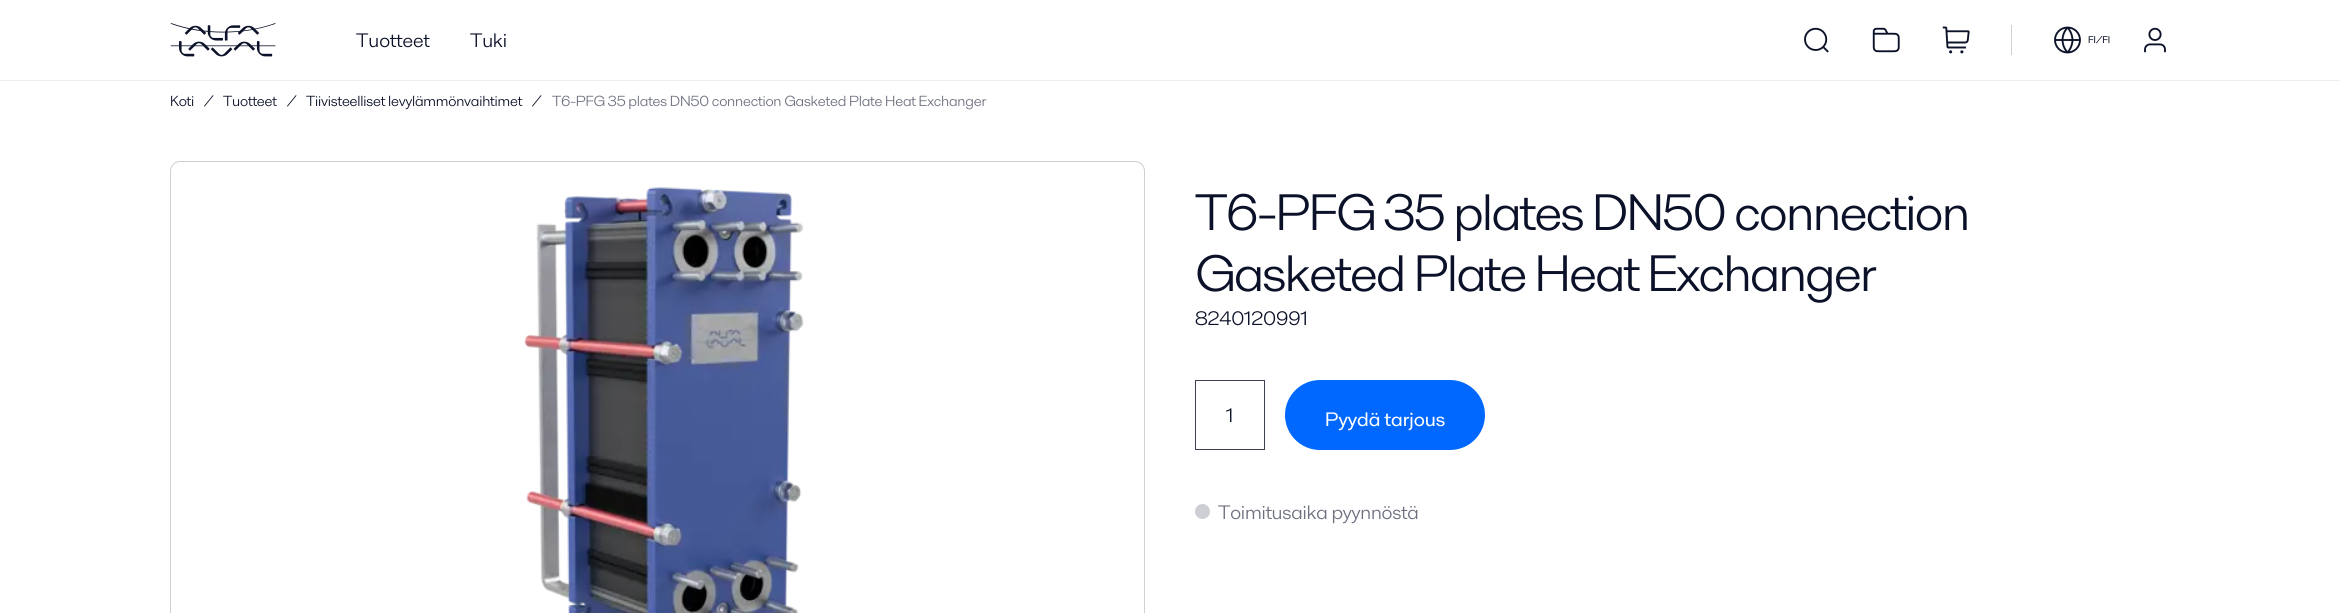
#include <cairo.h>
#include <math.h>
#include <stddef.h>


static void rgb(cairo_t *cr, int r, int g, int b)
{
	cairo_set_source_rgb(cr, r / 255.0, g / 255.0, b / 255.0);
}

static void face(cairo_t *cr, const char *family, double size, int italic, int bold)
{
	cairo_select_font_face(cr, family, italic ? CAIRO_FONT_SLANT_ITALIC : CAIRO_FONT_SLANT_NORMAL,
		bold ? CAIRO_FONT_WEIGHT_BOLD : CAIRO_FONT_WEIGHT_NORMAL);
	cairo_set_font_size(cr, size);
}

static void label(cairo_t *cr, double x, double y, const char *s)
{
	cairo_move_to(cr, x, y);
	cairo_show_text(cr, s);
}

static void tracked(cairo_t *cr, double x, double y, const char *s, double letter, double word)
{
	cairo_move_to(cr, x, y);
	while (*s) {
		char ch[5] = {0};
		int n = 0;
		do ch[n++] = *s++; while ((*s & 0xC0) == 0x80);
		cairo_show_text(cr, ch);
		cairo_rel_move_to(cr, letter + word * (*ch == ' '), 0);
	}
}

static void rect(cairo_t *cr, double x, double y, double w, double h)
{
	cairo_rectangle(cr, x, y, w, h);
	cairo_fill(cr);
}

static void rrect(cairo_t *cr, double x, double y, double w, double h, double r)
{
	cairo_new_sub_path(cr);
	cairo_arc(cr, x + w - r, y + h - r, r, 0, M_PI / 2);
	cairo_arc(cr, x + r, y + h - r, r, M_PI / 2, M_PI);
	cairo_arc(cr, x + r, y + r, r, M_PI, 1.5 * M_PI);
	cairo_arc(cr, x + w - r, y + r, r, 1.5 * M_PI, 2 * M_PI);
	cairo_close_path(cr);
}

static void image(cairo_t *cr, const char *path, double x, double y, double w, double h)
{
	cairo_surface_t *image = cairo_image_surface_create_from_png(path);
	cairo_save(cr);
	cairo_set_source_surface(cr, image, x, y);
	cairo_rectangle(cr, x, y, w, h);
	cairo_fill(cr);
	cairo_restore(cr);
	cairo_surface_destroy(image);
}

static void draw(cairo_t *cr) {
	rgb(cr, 255, 255, 255);
	cairo_paint(cr);
	image(cr, "image0.png", 170, 23, 106, 34);
	face(cr, "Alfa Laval", 20, 0, 0);
	rgb(cr, 11, 17, 40);
	label(cr, 356, 47, "Tuotteet");
	tracked(cr, 470, 47, "Tuki", -0.2, 0);
	image(cr, "image1.png", 1804, 27, 25, 26);
	image(cr, "image2.png", 1872, 27, 28, 26);
	image(cr, "image3.png", 1942, 26, 28, 28);
	rgb(cr, 206, 207, 212);
	rect(cr, 2011, 25, 1, 30);
	image(cr, "image4.png", 2054, 26, 27, 28);
	face(cr, "Alfa Laval Medium", 10, 0, 0);
	rgb(cr, 11, 17, 40);
	label(cr, 2088, 43, "FI/FI");
	image(cr, "image5.png", 2144, 27, 22, 26);
	rgb(cr, 238, 238, 236);
	rect(cr, 0, 80, 2340, 1);
	face(cr, "Alfa Laval", 15, 0, 0);
	rgb(cr, 11, 17, 40);
	tracked(cr, 170, 106, "Koti", -0.2, 0);
	tracked(cr, 204, 106, "/", -0.2, 0);
	tracked(cr, 223, 106, "Tuotteet", -0.2, 0);
	tracked(cr, 287, 106, "/", -0.2, 0);
	tracked(cr, 306, 106, "Tiivisteelliset levylämmönvaihtimet", -0.2, 0);
	tracked(cr, 532, 106, "/", -0.2, 0);
	rgb(cr, 109, 112, 126);
	tracked(cr, 552, 106, "T6-PFG 35 plates DN50 connection Gasketed Plate Heat Exchanger", -0.2, 0);
	rrect(cr, 170.5, 161.5, 974, 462, 9.5);
	rgb(cr, 206, 207, 212);
	cairo_set_line_width(cr, 1);
	cairo_stroke(cr);
	image(cr, "image6.png", 524, 187, 280, 426);
	face(cr, "Alfa Laval", 52.5, 0, 0);
	rgb(cr, 11, 17, 40);
	tracked(cr, 1195, 230, "T6-PFG 35 plates DN50 connection", -1.6, 0);
	tracked(cr, 1195, 291, "Gasketed Plate Heat Exchanger", -1.6, 0);
	face(cr, "Alfa Laval", 20, 0, 0);
	tracked(cr, 1195, 325, "8240120991", -0.2, 0);
	cairo_rectangle(cr, 1195.5, 380.5, 69, 69);
	rgb(cr, 60, 65, 83);
	cairo_stroke(cr);
	rgb(cr, 11, 17, 40);
	label(cr, 1226, 422, "1");
	rgb(cr, 0, 104, 255);
	rrect(cr, 1285, 380, 200, 70, 35);
	cairo_fill(cr);
	face(cr, "Alfa Laval Medium", 20, 0, 0);
	rgb(cr, 255, 255, 255);
	label(cr, 1325, 426, "Pyydä tarjous");
	rgb(cr, 206, 207, 212);
	cairo_new_path(cr);
	cairo_arc(cr, 1202.5, 511.5, 7.5, 0, 2 * M_PI);
	cairo_fill(cr);
	face(cr, "Alfa Laval", 20, 0, 0);
	rgb(cr, 109, 112, 126);
	tracked(cr, 1218, 519, "Toimitusaika pyynnöstä", -0.2, 0);
}

int main(void) {
	cairo_surface_t *surface = cairo_image_surface_create(CAIRO_FORMAT_RGB24, 2340, 613);
	cairo_t *cr = cairo_create(surface);
	cairo_font_options_t *options = cairo_font_options_create();
	cairo_font_options_set_hint_metrics(options, CAIRO_HINT_METRICS_OFF);
	cairo_font_options_set_hint_style(options, CAIRO_HINT_STYLE_NONE);
	cairo_set_font_options(cr, options);
	cairo_set_miter_limit(cr, 4);
	draw(cr);
	cairo_surface_write_to_png(surface, "render.png");
	cairo_font_options_destroy(options);
	cairo_destroy(cr);
	cairo_surface_destroy(surface);
	return 0;
}
